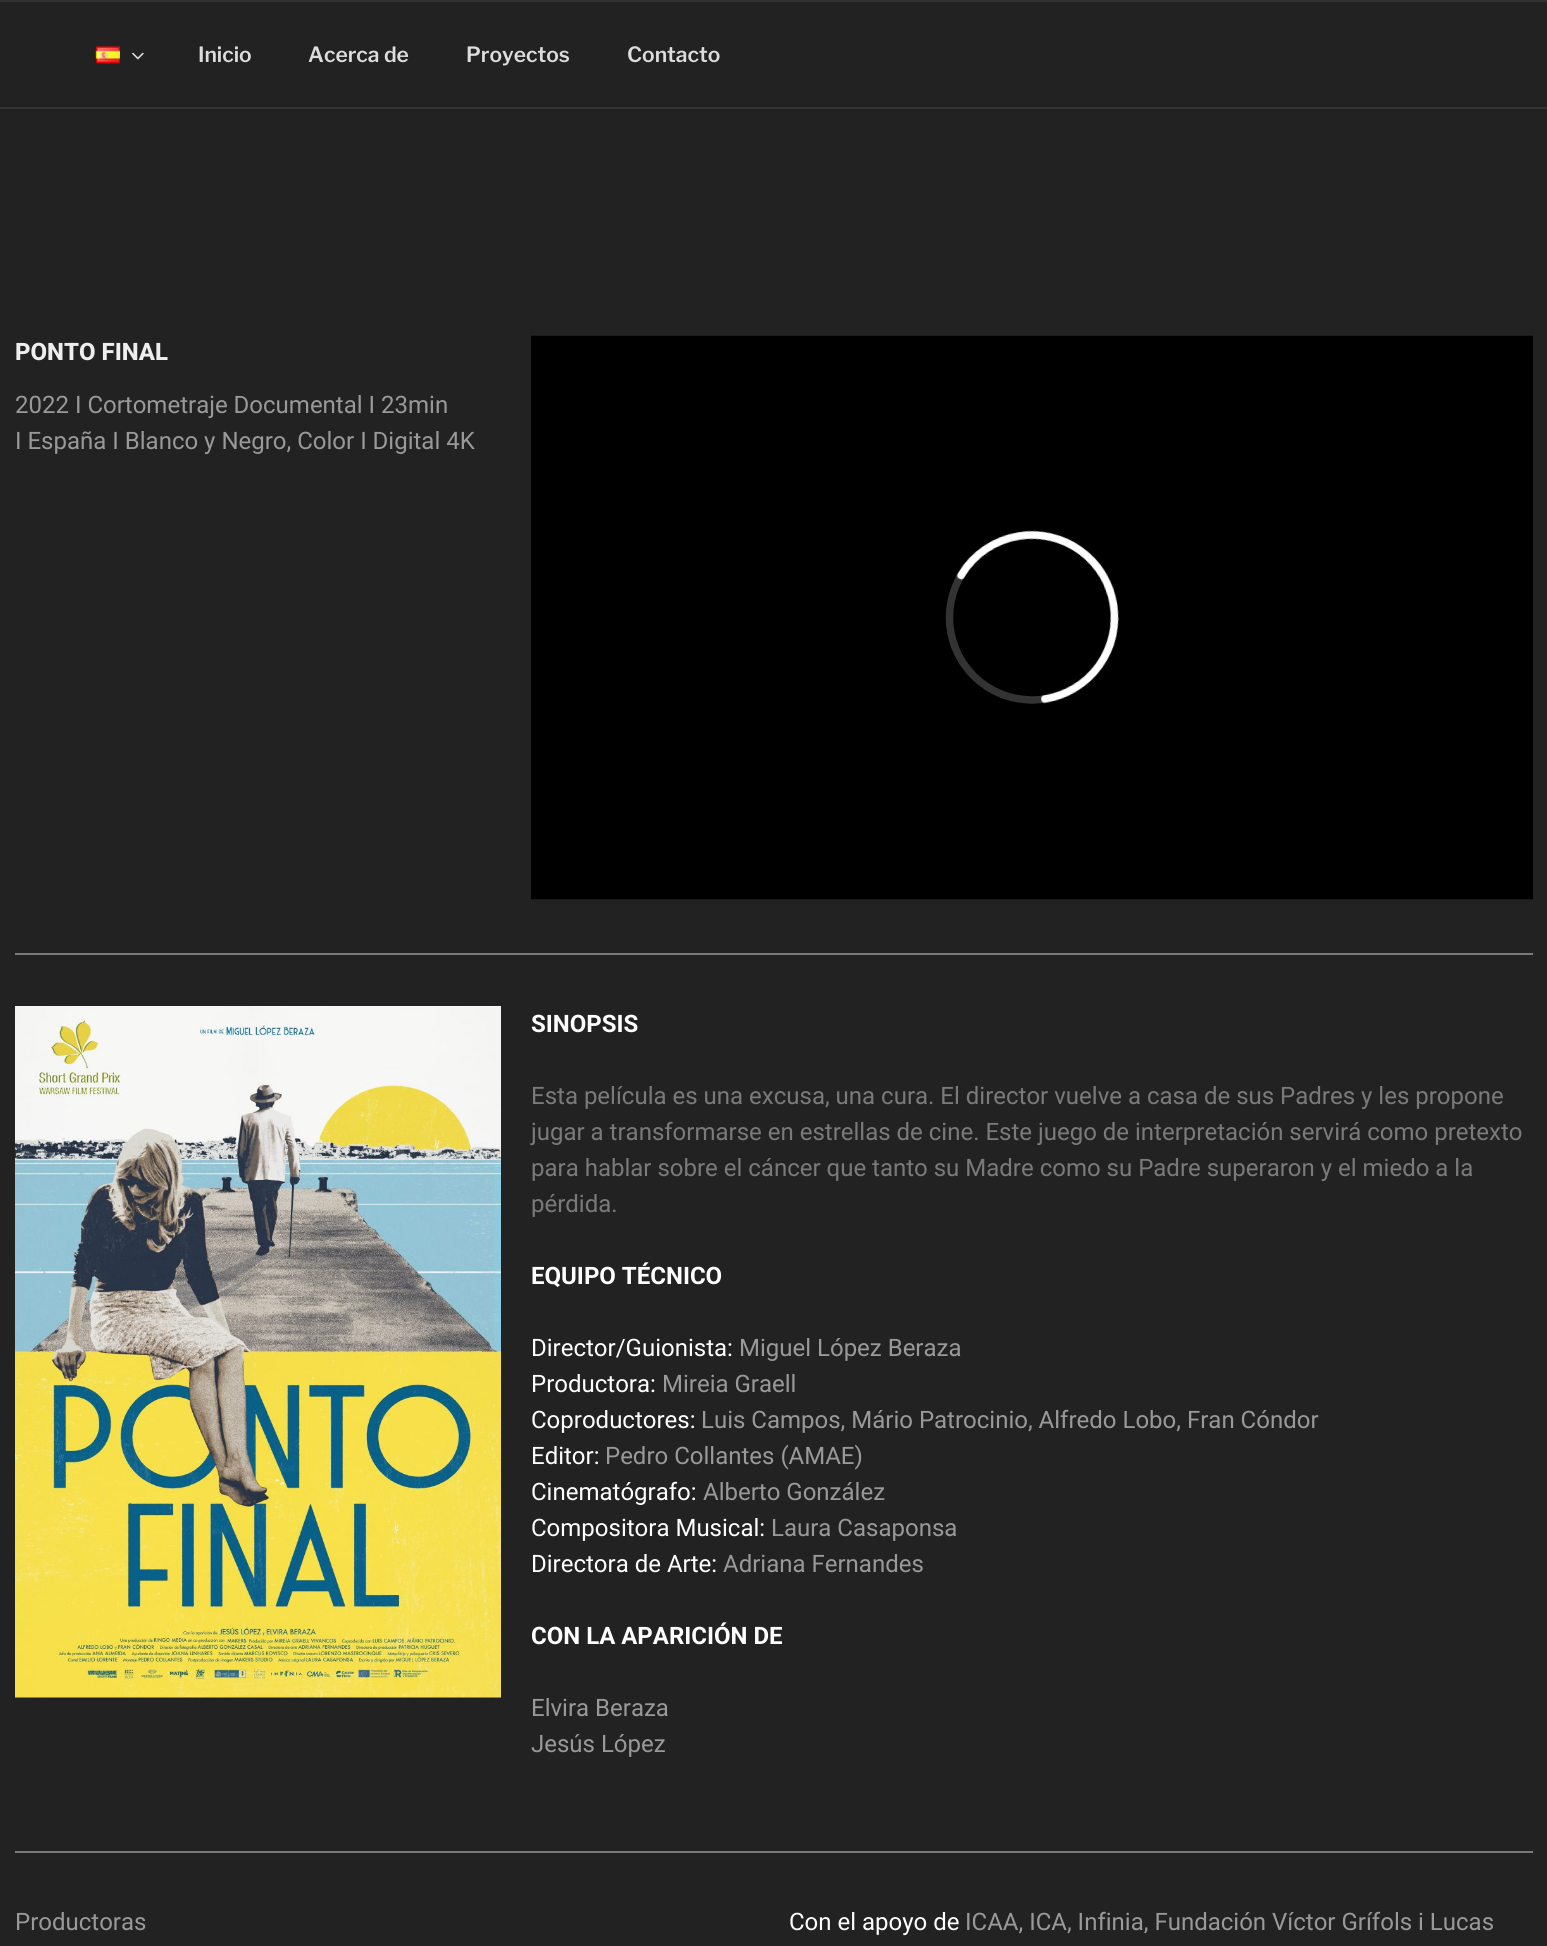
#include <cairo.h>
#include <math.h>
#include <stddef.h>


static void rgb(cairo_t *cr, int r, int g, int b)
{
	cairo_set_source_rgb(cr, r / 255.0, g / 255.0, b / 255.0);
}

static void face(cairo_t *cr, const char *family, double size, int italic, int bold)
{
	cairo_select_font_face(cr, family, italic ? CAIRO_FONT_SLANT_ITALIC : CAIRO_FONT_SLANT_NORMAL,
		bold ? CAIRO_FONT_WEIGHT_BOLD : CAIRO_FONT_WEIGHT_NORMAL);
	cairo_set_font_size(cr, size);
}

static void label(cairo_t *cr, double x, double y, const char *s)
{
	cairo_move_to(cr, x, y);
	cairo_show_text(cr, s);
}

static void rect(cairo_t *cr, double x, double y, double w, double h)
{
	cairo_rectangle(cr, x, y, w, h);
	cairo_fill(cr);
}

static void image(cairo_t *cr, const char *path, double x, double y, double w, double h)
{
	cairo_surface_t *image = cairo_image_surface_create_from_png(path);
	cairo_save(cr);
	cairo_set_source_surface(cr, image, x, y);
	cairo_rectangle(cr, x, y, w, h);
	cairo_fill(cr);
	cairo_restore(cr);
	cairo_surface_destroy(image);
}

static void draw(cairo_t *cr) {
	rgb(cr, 34, 34, 34);
	cairo_paint(cr);
	rgb(cr, 51, 51, 51);
	rect(cr, 0, 0, 1547, 2);
	rect(cr, 0, 107, 1547, 2);
	image(cr, "image0.png", 95, 46, 25, 17);
	image(cr, "image1.png", 132, 52, 12, 8);
	face(cr, "Libre Franklin Thin", 21, 0, 0);
	rgb(cr, 221, 221, 221);
	label(cr, 198, 62, "Inicio");
	label(cr, 308, 62, "Acerca de");
	label(cr, 466, 62, "Proyectos");
	label(cr, 627, 62, "Contacto");
	face(cr, "Roboto ExtraBold", 24, 0, 0);
	rgb(cr, 238, 238, 238);
	label(cr, 15, 360, "PONTO FINAL");
	face(cr, "Roboto", 24, 0, 0);
	rgb(cr, 153, 153, 153);
	label(cr, 15, 413, "2022 I Cortometraje Documental I 23min");
	label(cr, 15, 449, "I España I Blanco y Negro, Color I Digital 4K");
	image(cr, "image2.png", 531, 335, 1002, 565);
	rgb(cr, 122, 122, 122);
	rect(cr, 15, 953, 1518, 2);
	image(cr, "image3.png", 15, 1006, 486, 692);
	face(cr, "Roboto", 24, 0, 1);
	rgb(cr, 255, 255, 255);
	label(cr, 531, 1032, "SINOPSIS");
	face(cr, "Roboto", 24, 0, 0);
	rgb(cr, 122, 122, 122);
	label(cr, 531, 1104, "Esta película es una excusa, una cura. El director vuelve a casa de sus Padres y les propone");
	label(cr, 531, 1140, "jugar a transformarse en estrellas de cine. Este juego de interpretación servirá como pretexto");
	label(cr, 531, 1176, "para hablar sobre el cáncer que tanto su Madre como su Padre superaron y el miedo a la");
	label(cr, 531, 1212, "pérdida.");
	face(cr, "Roboto", 24, 0, 1);
	rgb(cr, 255, 255, 255);
	label(cr, 531, 1284, "EQUIPO TÉCNICO");
	face(cr, "Roboto", 24, 0, 0);
	label(cr, 531, 1356, "Director/Guionista:");
	rgb(cr, 153, 153, 153);
	label(cr, 739, 1356, "Miguel López Beraza");
	rgb(cr, 255, 255, 255);
	label(cr, 531, 1392, "Productora:");
	rgb(cr, 153, 153, 153);
	label(cr, 662, 1392, "Mireia Graell");
	rgb(cr, 255, 255, 255);
	label(cr, 531, 1428, "Coproductores:");
	rgb(cr, 153, 153, 153);
	label(cr, 701, 1428, "Luis Campos, Mário Patrocinio, Alfredo Lobo, Fran Cóndor");
	rgb(cr, 255, 255, 255);
	label(cr, 531, 1464, "Editor:");
	rgb(cr, 153, 153, 153);
	label(cr, 605, 1464, "Pedro Collantes (AMAE)");
	rgb(cr, 255, 255, 255);
	label(cr, 531, 1500, "Cinematógrafo:");
	rgb(cr, 153, 153, 153);
	label(cr, 703, 1500, "Alberto González");
	rgb(cr, 255, 255, 255);
	label(cr, 531, 1536, "Compositora Musical:");
	rgb(cr, 153, 153, 153);
	label(cr, 771, 1536, "Laura Casaponsa");
	rgb(cr, 255, 255, 255);
	label(cr, 531, 1572, "Directora de Arte:");
	rgb(cr, 153, 153, 153);
	label(cr, 723, 1572, "Adriana Fernandes");
	face(cr, "Roboto", 24, 0, 1);
	rgb(cr, 255, 255, 255);
	label(cr, 531, 1644, "CON LA APARICIÓN DE");
	face(cr, "Roboto", 24, 0, 0);
	rgb(cr, 153, 153, 153);
	label(cr, 531, 1716, "Elvira Beraza");
	label(cr, 531, 1752, "Jesús López");
	rgb(cr, 122, 122, 122);
	rect(cr, 15, 1851, 1518, 2);
	rgb(cr, 153, 153, 153);
	label(cr, 15, 1930, "Productoras");
	rgb(cr, 255, 255, 255);
	label(cr, 789, 1930, "Con el apoyo de");
	rgb(cr, 153, 153, 153);
	label(cr, 965, 1930, "ICAA, ICA, Infinia, Fundación Víctor Grífols i Lucas");
}

int main(void) {
	cairo_surface_t *surface = cairo_image_surface_create(CAIRO_FORMAT_RGB24, 1547, 1946);
	cairo_t *cr = cairo_create(surface);
	cairo_font_options_t *options = cairo_font_options_create();
	cairo_font_options_set_hint_metrics(options, CAIRO_HINT_METRICS_OFF);
	cairo_font_options_set_hint_style(options, CAIRO_HINT_STYLE_NONE);
	cairo_set_font_options(cr, options);
	cairo_set_miter_limit(cr, 4);
	draw(cr);
	cairo_surface_write_to_png(surface, "render.png");
	cairo_font_options_destroy(options);
	cairo_destroy(cr);
	cairo_surface_destroy(surface);
	return 0;
}
